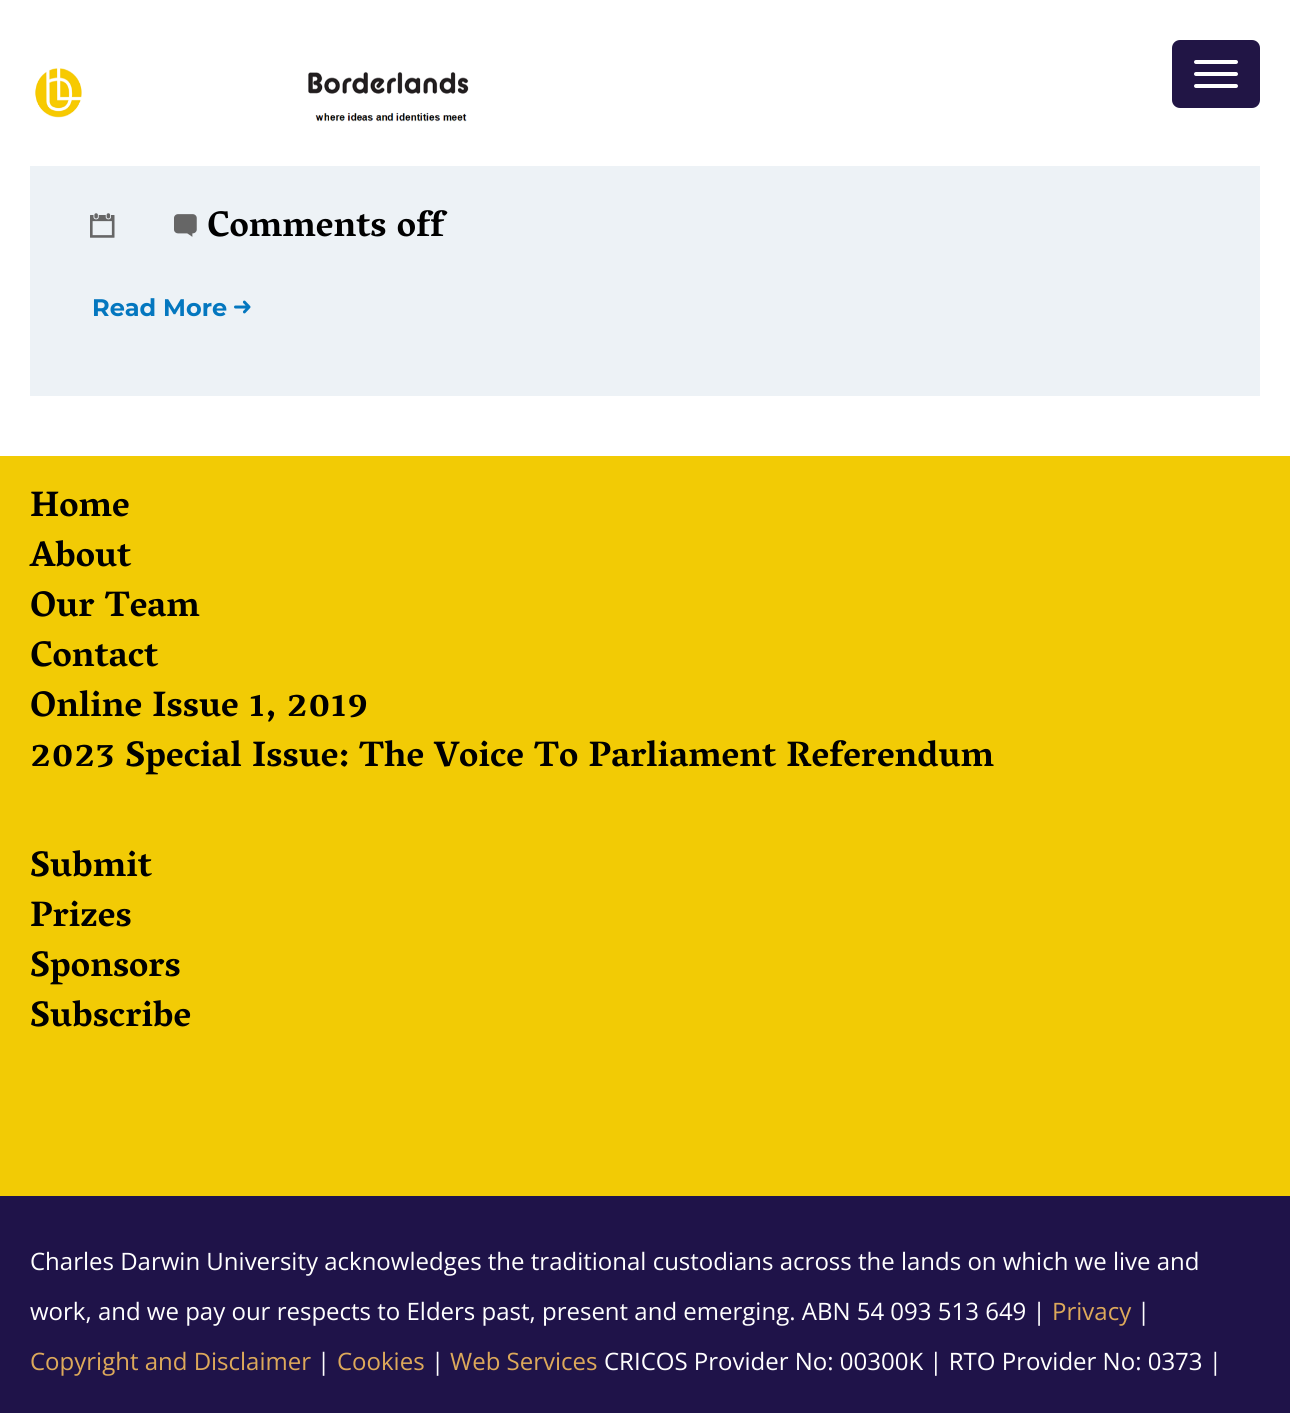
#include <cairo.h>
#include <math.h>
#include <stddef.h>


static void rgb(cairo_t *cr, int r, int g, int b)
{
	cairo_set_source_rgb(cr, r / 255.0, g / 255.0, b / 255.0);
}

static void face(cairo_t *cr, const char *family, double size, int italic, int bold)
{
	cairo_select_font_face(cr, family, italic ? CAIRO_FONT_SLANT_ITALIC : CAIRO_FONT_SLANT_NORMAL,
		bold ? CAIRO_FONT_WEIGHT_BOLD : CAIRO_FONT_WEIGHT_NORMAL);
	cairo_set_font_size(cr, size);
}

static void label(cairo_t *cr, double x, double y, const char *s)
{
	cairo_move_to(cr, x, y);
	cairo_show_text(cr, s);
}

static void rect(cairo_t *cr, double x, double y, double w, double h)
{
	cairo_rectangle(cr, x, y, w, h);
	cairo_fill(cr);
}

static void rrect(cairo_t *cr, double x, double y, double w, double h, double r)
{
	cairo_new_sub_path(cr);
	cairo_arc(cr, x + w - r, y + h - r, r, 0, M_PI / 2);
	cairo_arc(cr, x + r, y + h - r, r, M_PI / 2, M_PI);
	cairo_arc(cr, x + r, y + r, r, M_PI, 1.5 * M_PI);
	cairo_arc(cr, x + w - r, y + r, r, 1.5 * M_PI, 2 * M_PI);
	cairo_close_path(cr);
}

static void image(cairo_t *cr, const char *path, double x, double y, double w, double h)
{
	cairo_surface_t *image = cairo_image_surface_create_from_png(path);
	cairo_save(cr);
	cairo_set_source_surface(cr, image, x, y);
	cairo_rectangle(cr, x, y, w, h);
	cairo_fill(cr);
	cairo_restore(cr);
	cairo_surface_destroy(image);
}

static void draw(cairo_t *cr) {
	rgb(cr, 255, 255, 255);
	cairo_paint(cr);
	image(cr, "image0.png", 35, 68, 434, 54);
	rgb(cr, 33, 21, 69);
	rrect(cr, 1172, 40, 88, 68, 8);
	cairo_fill(cr);
	rgb(cr, 255, 255, 255);
	rrect(cr, 1194, 60, 44, 4, 2);
	cairo_fill(cr);
	rrect(cr, 1194, 72, 44, 4, 2);
	cairo_fill(cr);
	rrect(cr, 1194, 84, 44, 4, 2);
	cairo_fill(cr);
	rgb(cr, 237, 242, 246);
	rect(cr, 30, 166, 1230, 230);
	image(cr, "image1.png", 90, 213, 25, 25);
	image(cr, "image2.png", 174, 214, 23, 23);
	face(cr, "Vesper Libre", 36, 0, 1);
	rgb(cr, 0, 0, 0);
	label(cr, 207, 236, "Comments off");
	face(cr, "Montserrat", 24, 0, 1);
	rgb(cr, 4, 119, 191);
	label(cr, 92, 316, "Read More");
	image(cr, "image3.png", 234, 300, 17, 14);
	rgb(cr, 242, 203, 5);
	rect(cr, 0, 456, 1290, 740);
	face(cr, "Vesper Libre", 36, 0, 1);
	rgb(cr, 0, 0, 0);
	label(cr, 30, 516, "Home");
	label(cr, 30, 566, "About");
	label(cr, 30, 616, "Our Team");
	label(cr, 30, 666, "Contact");
	label(cr, 30, 716, "Online Issue 1, 2019");
	label(cr, 30, 766, "2023 Special Issue: The Voice To Parliament Referendum");
	label(cr, 30, 876, "Submit");
	label(cr, 30, 926, "Prizes");
	label(cr, 30, 976, "Sponsors");
	label(cr, 30, 1026, "Subscribe");
	rgb(cr, 31, 19, 73);
	rect(cr, 0, 1196, 1290, 217);
	face(cr, "Open Sans", 24, 0, 0);
	rgb(cr, 255, 255, 255);
	label(cr, 30, 1270, "Charles Darwin University acknowledges the traditional custodians across the lands on which we live and");
	label(cr, 30, 1320, "work, and we pay our respects to Elders past, present and emerging. ABN 54 093 513 649 |");
	rgb(cr, 221, 169, 90);
	label(cr, 1052, 1320, "Privacy");
	rgb(cr, 255, 255, 255);
	label(cr, 1137, 1320, "|");
	rgb(cr, 221, 169, 90);
	label(cr, 30, 1370, "Copyright and Disclaimer");
	rgb(cr, 255, 255, 255);
	label(cr, 317, 1370, "|");
	rgb(cr, 221, 169, 90);
	label(cr, 337, 1370, "Cookies");
	rgb(cr, 255, 255, 255);
	label(cr, 431, 1370, "|");
	rgb(cr, 221, 169, 90);
	label(cr, 450, 1370, "Web Services");
	rgb(cr, 255, 255, 255);
	label(cr, 604, 1370, "CRICOS Provider No: 00300K | RTO Provider No: 0373 |");
}

int main(void) {
	cairo_surface_t *surface = cairo_image_surface_create(CAIRO_FORMAT_RGB24, 1290, 1413);
	cairo_t *cr = cairo_create(surface);
	cairo_font_options_t *options = cairo_font_options_create();
	cairo_font_options_set_hint_metrics(options, CAIRO_HINT_METRICS_OFF);
	cairo_font_options_set_hint_style(options, CAIRO_HINT_STYLE_NONE);
	cairo_set_font_options(cr, options);
	cairo_set_miter_limit(cr, 4);
	draw(cr);
	cairo_surface_write_to_png(surface, "render.png");
	cairo_font_options_destroy(options);
	cairo_destroy(cr);
	cairo_surface_destroy(surface);
	return 0;
}
